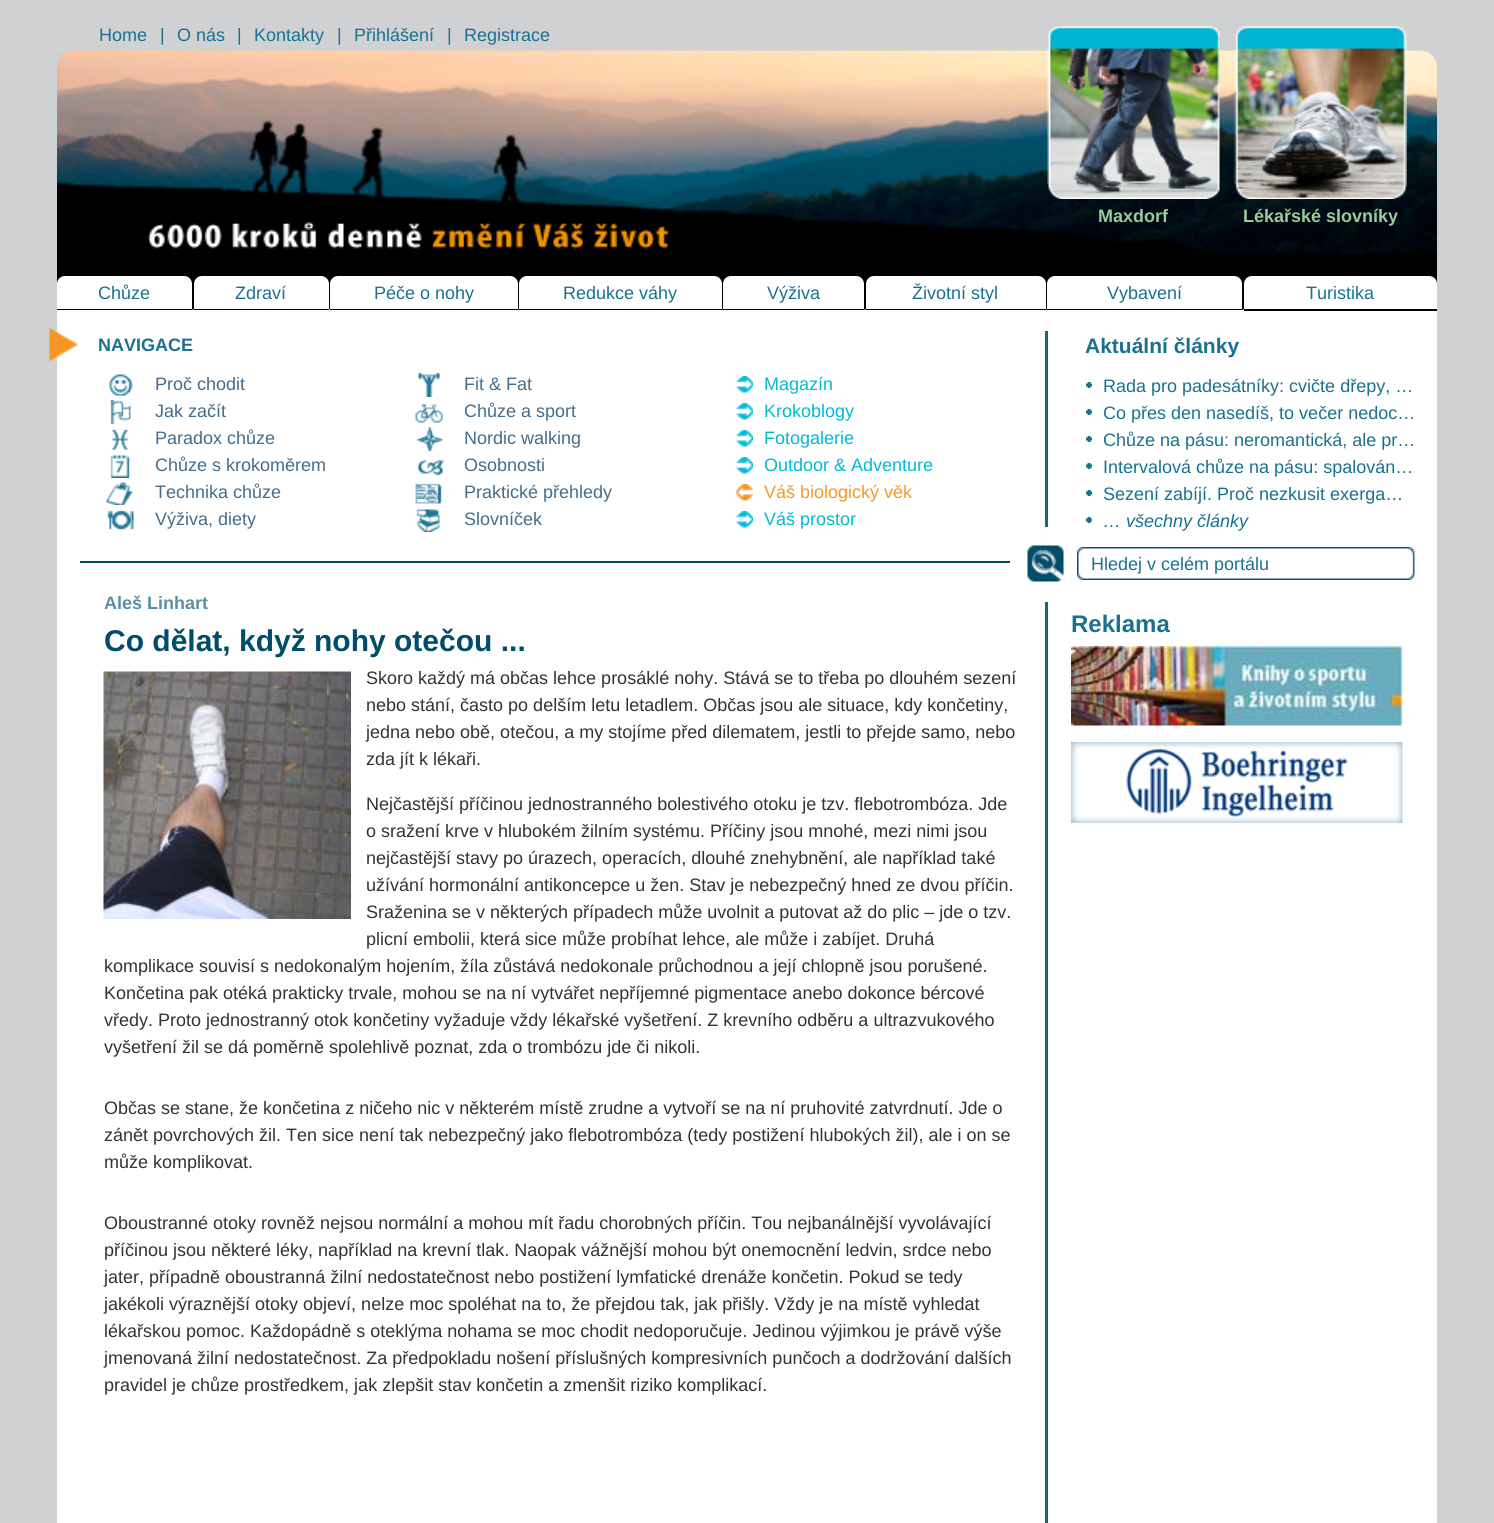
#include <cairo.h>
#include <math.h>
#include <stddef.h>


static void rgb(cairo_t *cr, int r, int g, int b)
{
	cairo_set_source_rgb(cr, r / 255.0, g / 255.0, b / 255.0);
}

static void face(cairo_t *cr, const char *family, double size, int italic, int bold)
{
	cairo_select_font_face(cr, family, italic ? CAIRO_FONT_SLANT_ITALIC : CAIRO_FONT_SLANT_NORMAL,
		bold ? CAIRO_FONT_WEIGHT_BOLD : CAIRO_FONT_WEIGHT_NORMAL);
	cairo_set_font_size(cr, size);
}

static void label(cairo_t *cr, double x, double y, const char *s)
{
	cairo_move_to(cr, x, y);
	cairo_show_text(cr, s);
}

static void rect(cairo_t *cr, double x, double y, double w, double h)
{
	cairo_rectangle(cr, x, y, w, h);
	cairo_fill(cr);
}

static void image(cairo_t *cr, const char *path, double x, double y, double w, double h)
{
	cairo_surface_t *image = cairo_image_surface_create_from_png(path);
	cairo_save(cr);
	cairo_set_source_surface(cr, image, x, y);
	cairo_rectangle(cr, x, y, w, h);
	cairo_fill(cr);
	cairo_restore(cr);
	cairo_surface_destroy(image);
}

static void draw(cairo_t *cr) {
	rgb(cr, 208, 209, 211);
	cairo_paint(cr);
	rgb(cr, 255, 255, 255);
	rect(cr, 57, 309, 1380, 1214);
	face(cr, "Liberation Sans", 18, 0, 0);
	rgb(cr, 25, 113, 143);
	label(cr, 99, 41, "Home");
	label(cr, 160, 41, "|");
	label(cr, 177, 41, "O nás");
	label(cr, 237, 41, "|");
	label(cr, 254, 41, "Kontakty");
	label(cr, 337, 41, "|");
	label(cr, 354, 41, "Přihlášení");
	label(cr, 447, 41, "|");
	label(cr, 464, 41, "Registrace");
	image(cr, "image0.png", 57, 50, 1380, 226);
	image(cr, "image1.png", 1047, 26, 173, 173);
	face(cr, "Liberation Sans", 18, 0, 1);
	rgb(cr, 153, 204, 153);
	label(cr, 1098, 222, "Maxdorf");
	image(cr, "image2.png", 1234, 26, 173, 173);
	label(cr, 1243, 222, "Lékařské slovníky");
	rgb(cr, 0, 0, 0);
	rect(cr, 57, 276, 1380, 33);
	cairo_new_path(cr);
	cairo_move_to(cr, 194, 310);
	cairo_line_to(cr, 57, 310);
	cairo_line_to(cr, 57, 309);
	cairo_line_to(cr, 192, 309);
	cairo_close_path(cr);
	cairo_fill(cr);
	rgb(cr, 255, 255, 255);
	cairo_new_path(cr);
	cairo_move_to(cr, 65, 276);
	cairo_line_to(cr, 184, 276);
	cairo_curve_to(cr, 188.5, 276, 192, 279.5, 192, 284);
	cairo_line_to(cr, 192, 309);
	cairo_line_to(cr, 57, 309);
	cairo_line_to(cr, 57, 284);
	cairo_curve_to(cr, 57, 279.5, 60.5, 276, 65, 276);
	cairo_close_path(cr);
	cairo_fill(cr);
	face(cr, "Liberation Sans", 18, 0, 0);
	rgb(cr, 25, 113, 143);
	label(cr, 98, 299, "Chůze");
	rgb(cr, 0, 0, 0);
	cairo_new_path(cr);
	cairo_move_to(cr, 330, 310);
	cairo_line_to(cr, 194, 310);
	cairo_line_to(cr, 194, 309);
	cairo_line_to(cr, 328, 309);
	cairo_close_path(cr);
	cairo_fill(cr);
	rgb(cr, 255, 255, 255);
	cairo_new_path(cr);
	cairo_move_to(cr, 202, 276);
	cairo_line_to(cr, 321, 276);
	cairo_curve_to(cr, 325.5, 276, 329, 279.5, 329, 284);
	cairo_line_to(cr, 329, 309);
	cairo_line_to(cr, 194, 309);
	cairo_line_to(cr, 194, 284);
	cairo_curve_to(cr, 194, 279.5, 197.5, 276, 202, 276);
	cairo_close_path(cr);
	cairo_fill(cr);
	rgb(cr, 25, 113, 143);
	label(cr, 235, 299, "Zdraví");
	rgb(cr, 0, 0, 0);
	cairo_new_path(cr);
	cairo_move_to(cr, 519, 310);
	cairo_line_to(cr, 330, 310);
	cairo_line_to(cr, 330, 309);
	cairo_line_to(cr, 518, 309);
	cairo_close_path(cr);
	cairo_fill(cr);
	rgb(cr, 255, 255, 255);
	cairo_new_path(cr);
	cairo_move_to(cr, 338, 276);
	cairo_line_to(cr, 510, 276);
	cairo_curve_to(cr, 514.5, 276, 518, 279.5, 518, 284);
	cairo_line_to(cr, 518, 309);
	cairo_line_to(cr, 330, 309);
	cairo_line_to(cr, 330, 284);
	cairo_curve_to(cr, 330, 279.5, 333.5, 276, 338, 276);
	cairo_close_path(cr);
	cairo_fill(cr);
	rgb(cr, 25, 113, 143);
	label(cr, 374, 299, "Péče o nohy");
	rgb(cr, 0, 0, 0);
	cairo_new_path(cr);
	cairo_move_to(cr, 723, 310);
	cairo_line_to(cr, 519, 310);
	cairo_line_to(cr, 519, 309);
	cairo_line_to(cr, 722, 309);
	cairo_close_path(cr);
	cairo_fill(cr);
	rgb(cr, 255, 255, 255);
	cairo_new_path(cr);
	cairo_move_to(cr, 527, 276);
	cairo_line_to(cr, 714, 276);
	cairo_curve_to(cr, 718.5, 276, 722, 279.5, 722, 284);
	cairo_line_to(cr, 722, 309);
	cairo_line_to(cr, 519, 309);
	cairo_line_to(cr, 519, 284);
	cairo_curve_to(cr, 519, 279.5, 522.5, 276, 527, 276);
	cairo_close_path(cr);
	cairo_fill(cr);
	rgb(cr, 25, 113, 143);
	label(cr, 563, 299, "Redukce váhy");
	rgb(cr, 0, 0, 0);
	cairo_new_path(cr);
	cairo_move_to(cr, 866, 310);
	cairo_line_to(cr, 723, 310);
	cairo_line_to(cr, 723, 309);
	cairo_line_to(cr, 864, 309);
	cairo_close_path(cr);
	cairo_fill(cr);
	rgb(cr, 255, 255, 255);
	cairo_new_path(cr);
	cairo_move_to(cr, 731, 276);
	cairo_line_to(cr, 856, 276);
	cairo_curve_to(cr, 860.5, 276, 864, 279.5, 864, 284);
	cairo_line_to(cr, 864, 309);
	cairo_line_to(cr, 723, 309);
	cairo_line_to(cr, 723, 284);
	cairo_curve_to(cr, 723, 279.5, 726.5, 276, 731, 276);
	cairo_close_path(cr);
	cairo_fill(cr);
	rgb(cr, 25, 113, 143);
	label(cr, 767, 299, "Výživa");
	rgb(cr, 0, 0, 0);
	cairo_new_path(cr);
	cairo_move_to(cr, 1047, 310);
	cairo_line_to(cr, 866, 310);
	cairo_line_to(cr, 866, 309);
	cairo_line_to(cr, 1046, 309);
	cairo_close_path(cr);
	cairo_fill(cr);
	rgb(cr, 255, 255, 255);
	cairo_new_path(cr);
	cairo_move_to(cr, 874, 276);
	cairo_line_to(cr, 1038, 276);
	cairo_curve_to(cr, 1042.5, 276, 1046, 279.5, 1046, 284);
	cairo_line_to(cr, 1046, 309);
	cairo_line_to(cr, 866, 309);
	cairo_line_to(cr, 866, 284);
	cairo_curve_to(cr, 866, 279.5, 869.5, 276, 874, 276);
	cairo_close_path(cr);
	cairo_fill(cr);
	rgb(cr, 25, 113, 143);
	label(cr, 912, 299, "Životní styl");
	rgb(cr, 0, 0, 0);
	cairo_new_path(cr);
	cairo_move_to(cr, 1244, 310);
	cairo_line_to(cr, 1047, 310);
	cairo_line_to(cr, 1047, 309);
	cairo_line_to(cr, 1242, 309);
	cairo_close_path(cr);
	cairo_fill(cr);
	rgb(cr, 255, 255, 255);
	cairo_new_path(cr);
	cairo_move_to(cr, 1055, 276);
	cairo_line_to(cr, 1234, 276);
	cairo_curve_to(cr, 1238.5, 276, 1242, 279.5, 1242, 284);
	cairo_line_to(cr, 1242, 309);
	cairo_line_to(cr, 1047, 309);
	cairo_line_to(cr, 1047, 284);
	cairo_curve_to(cr, 1047, 279.5, 1050.5, 276, 1055, 276);
	cairo_close_path(cr);
	cairo_fill(cr);
	rgb(cr, 25, 113, 143);
	label(cr, 1107, 299, "Vybavení");
	rgb(cr, 0, 0, 0);
	rect(cr, 1244, 309, 193, 2);
	rgb(cr, 255, 255, 255);
	cairo_new_path(cr);
	cairo_move_to(cr, 1252, 276);
	cairo_line_to(cr, 1429, 276);
	cairo_curve_to(cr, 1433.5, 276, 1437, 279.5, 1437, 284);
	cairo_line_to(cr, 1437, 309);
	cairo_line_to(cr, 1244, 309);
	cairo_line_to(cr, 1244, 284);
	cairo_curve_to(cr, 1244, 279.5, 1247.5, 276, 1252, 276);
	cairo_close_path(cr);
	cairo_fill(cr);
	rgb(cr, 25, 113, 143);
	label(cr, 1306, 299, "Turistika");
	rgb(cr, 31, 98, 125);
	rect(cr, 1045, 331, 3, 1192);
	rgb(cr, 0, 76, 107);
	rect(cr, 80, 561, 930, 2);
	image(cr, "image3.png", 49, 328, 29, 33);
	face(cr, "Liberation Sans", 18, 0, 1);
	rgb(cr, 25, 113, 143);
	label(cr, 98, 351, "NAVIGACE");
	image(cr, "image4.png", 109, 374, 24, 22);
	face(cr, "Liberation Sans", 18, 0, 0);
	rgb(cr, 69, 108, 141);
	label(cr, 155, 390, "Proč chodit");
	image(cr, "image5.png", 418, 373, 22, 24);
	label(cr, 464, 390, "Fit & Fat");
	image(cr, "image6.png", 110, 400, 21, 24);
	label(cr, 155, 417, "Jak začít");
	image(cr, "image7.png", 415, 404, 28, 19);
	label(cr, 464, 417, "Chůze a sport");
	image(cr, "image8.png", 112, 429, 16, 21);
	label(cr, 155, 444, "Paradox chůze");
	image(cr, "image9.png", 416, 427, 27, 24);
	label(cr, 464, 444, "Nordic walking");
	image(cr, "image10.png", 110, 455, 20, 23);
	label(cr, 155, 471, "Chůze s krokoměrem");
	image(cr, "image11.png", 416, 459, 29, 17);
	label(cr, 464, 471, "Osobnosti");
	image(cr, "image12.png", 106, 482, 27, 23);
	label(cr, 155, 498, "Technika chůze");
	image(cr, "image13.png", 415, 483, 27, 21);
	label(cr, 464, 498, "Praktické přehledy");
	image(cr, "image14.png", 107, 510, 27, 20);
	label(cr, 155, 525, "Výživa, diety");
	image(cr, "image15.png", 416, 509, 24, 23);
	label(cr, 464, 525, "Slovníček");
	image(cr, "image16.png", 736, 376, 17, 17);
	rgb(cr, 0, 186, 213);
	label(cr, 764, 390, "Magazín");
	image(cr, "image16.png", 736, 403, 17, 17);
	label(cr, 764, 417, "Krokoblogy");
	image(cr, "image16.png", 736, 430, 17, 17);
	label(cr, 764, 444, "Fotogalerie");
	image(cr, "image16.png", 736, 457, 17, 17);
	label(cr, 764, 471, "Outdoor & Adventure");
	image(cr, "image17.png", 736, 484, 17, 17);
	rgb(cr, 247, 150, 37);
	label(cr, 764, 498, "Váš biologický věk");
	image(cr, "image16.png", 736, 511, 17, 17);
	rgb(cr, 0, 186, 213);
	label(cr, 764, 525, "Váš prostor");
	face(cr, "Liberation Sans", 21, 0, 1);
	rgb(cr, 25, 113, 143);
	label(cr, 1085, 353, "Aktuální články");
	image(cr, "image18.png", 1086, 382, 6, 6);
	face(cr, "Liberation Sans", 18, 0, 0);
	label(cr, 1103, 392, "Rada pro padesátníky: cvičte dřepy, …");
	image(cr, "image18.png", 1086, 409, 6, 6);
	label(cr, 1103, 419, "Co přes den nasedíš, to večer nedoc…");
	image(cr, "image18.png", 1086, 436, 6, 6);
	label(cr, 1103, 446, "Chůze na pásu: neromantická, ale pr…");
	image(cr, "image18.png", 1086, 463, 6, 6);
	label(cr, 1103, 473, "Intervalová chůze na pásu: spalován…");
	image(cr, "image18.png", 1086, 490, 6, 6);
	label(cr, 1103, 500, "Sezení zabíjí. Proč nezkusit exerga…");
	image(cr, "image18.png", 1086, 517, 6, 6);
	face(cr, "Liberation Sans", 18, 1, 0);
	label(cr, 1103, 527, "… všechny články");
	rgb(cr, 255, 255, 255);
	rect(cr, 1045, 527, 3, 75);
	image(cr, "image19.png", 1027, 545, 37, 37);
	image(cr, "image20.png", 1077, 547, 338, 33);
	face(cr, "Liberation Sans", 18, 0, 0);
	rgb(cr, 25, 113, 143);
	label(cr, 1091, 570, "Hledej v celém portálu");
	face(cr, "Liberation Sans", 18, 0, 1);
	rgb(cr, 90, 143, 170);
	label(cr, 104, 609, "Aleš Linhart");
	face(cr, "Liberation Sans", 30, 0, 1);
	rgb(cr, 0, 76, 107);
	label(cr, 104, 651, "Co dělat, když nohy otečou ...");
	image(cr, "image21.png", 103, 671, 248, 248);
	face(cr, "Liberation Sans", 18, 0, 0);
	rgb(cr, 51, 51, 51);
	label(cr, 366, 684, "Skoro každý má občas lehce prosáklé nohy. Stává se to třeba po dlouhém sezení");
	label(cr, 366, 711, "nebo stání, často po delším letu letadlem. Občas jsou ale situace, kdy končetiny,");
	label(cr, 366, 738, "jedna nebo obě, otečou, a my stojíme před dilematem, jestli to přejde samo, nebo");
	label(cr, 366, 765, "zda jít k lékaři.");
	label(cr, 366, 810, "Nejčastější příčinou jednostranného bolestivého otoku je tzv. flebotrombóza. Jde");
	label(cr, 366, 837, "o sražení krve v hlubokém žilním systému. Příčiny jsou mnohé, mezi nimi jsou");
	label(cr, 366, 864, "nejčastější stavy po úrazech, operacích, dlouhé znehybnění, ale například také");
	label(cr, 366, 891, "užívání hormonální antikoncepce u žen. Stav je nebezpečný hned ze dvou příčin.");
	label(cr, 366, 918, "Sraženina se v některých případech může uvolnit a putovat až do plic – jde o tzv.");
	label(cr, 366, 945, "plicní embolii, která sice může probíhat lehce, ale může i zabíjet. Druhá");
	label(cr, 104, 972, "komplikace souvisí s nedokonalým hojením, žíla zůstává nedokonale průchodnou a její chlopně jsou porušené.");
	label(cr, 104, 999, "Končetina pak otéká prakticky trvale, mohou se na ní vytvářet nepříjemné pigmentace anebo dokonce bércové");
	label(cr, 104, 1026, "vředy. Proto jednostranný otok končetiny vyžaduje vždy lékařské vyšetření. Z krevního odběru a ultrazvukového");
	label(cr, 104, 1053, "vyšetření žil se dá poměrně spolehlivě poznat, zda o trombózu jde či nikoli.");
	label(cr, 104, 1114, "Občas se stane, že končetina z ničeho nic v některém místě zrudne a vytvoří se na ní pruhovité zatvrdnutí. Jde o");
	label(cr, 104, 1141, "zánět povrchových žil. Ten sice není tak nebezpečný jako flebotrombóza (tedy postižení hlubokých žil), ale i on se");
	label(cr, 104, 1168, "může komplikovat.");
	label(cr, 104, 1229, "Oboustranné otoky rovněž nejsou normální a mohou mít řadu chorobných příčin. Tou nejbanálnější vyvolávající");
	label(cr, 104, 1256, "příčinou jsou některé léky, například na krevní tlak. Naopak vážnější mohou být onemocnění ledvin, srdce nebo");
	label(cr, 104, 1283, "jater, případně oboustranná žilní nedostatečnost nebo postižení lymfatické drenáže končetin. Pokud se tedy");
	label(cr, 104, 1310, "jakékoli výraznější otoky objeví, nelze moc spoléhat na to, že přejdou tak, jak přišly. Vždy je na místě vyhledat");
	label(cr, 104, 1337, "lékařskou pomoc. Každopádně s oteklýma nohama se moc chodit nedoporučuje. Jedinou výjimkou je právě výše");
	label(cr, 104, 1364, "jmenovaná žilní nedostatečnost. Za předpokladu nošení příslušných kompresivních punčoch a dodržování dalších");
	label(cr, 104, 1391, "pravidel je chůze prostředkem, jak zlepšit stav končetin a zmenšit riziko komplikací.");
	face(cr, "Liberation Sans", 24, 0, 1);
	rgb(cr, 25, 113, 143);
	label(cr, 1071, 632, "Reklama");
	image(cr, "image22.png", 1071, 646, 332, 80);
	image(cr, "image23.png", 1071, 742, 332, 81);
}

int main(void) {
	cairo_surface_t *surface = cairo_image_surface_create(CAIRO_FORMAT_RGB24, 1494, 1523);
	cairo_t *cr = cairo_create(surface);
	cairo_font_options_t *options = cairo_font_options_create();
	cairo_font_options_set_hint_metrics(options, CAIRO_HINT_METRICS_OFF);
	cairo_font_options_set_hint_style(options, CAIRO_HINT_STYLE_NONE);
	cairo_set_font_options(cr, options);
	cairo_set_miter_limit(cr, 4);
	draw(cr);
	cairo_surface_write_to_png(surface, "render.png");
	cairo_font_options_destroy(options);
	cairo_destroy(cr);
	cairo_surface_destroy(surface);
	return 0;
}
